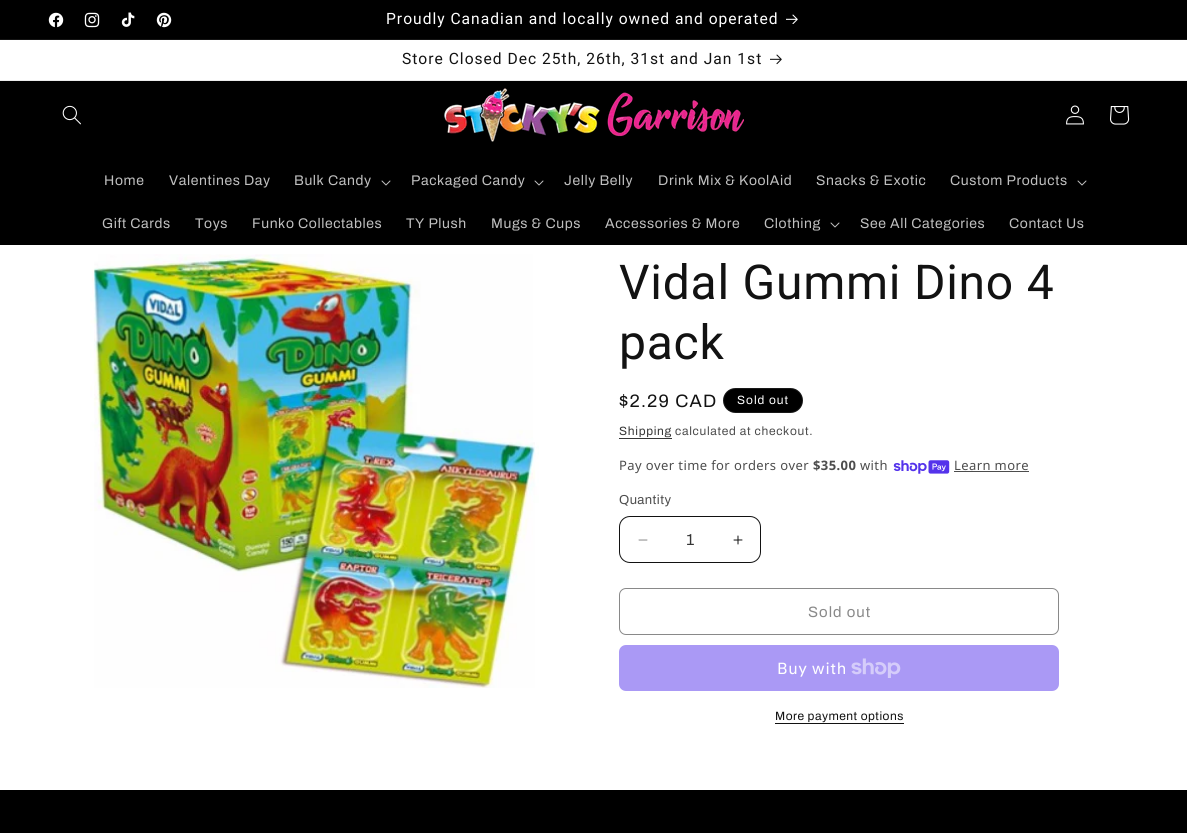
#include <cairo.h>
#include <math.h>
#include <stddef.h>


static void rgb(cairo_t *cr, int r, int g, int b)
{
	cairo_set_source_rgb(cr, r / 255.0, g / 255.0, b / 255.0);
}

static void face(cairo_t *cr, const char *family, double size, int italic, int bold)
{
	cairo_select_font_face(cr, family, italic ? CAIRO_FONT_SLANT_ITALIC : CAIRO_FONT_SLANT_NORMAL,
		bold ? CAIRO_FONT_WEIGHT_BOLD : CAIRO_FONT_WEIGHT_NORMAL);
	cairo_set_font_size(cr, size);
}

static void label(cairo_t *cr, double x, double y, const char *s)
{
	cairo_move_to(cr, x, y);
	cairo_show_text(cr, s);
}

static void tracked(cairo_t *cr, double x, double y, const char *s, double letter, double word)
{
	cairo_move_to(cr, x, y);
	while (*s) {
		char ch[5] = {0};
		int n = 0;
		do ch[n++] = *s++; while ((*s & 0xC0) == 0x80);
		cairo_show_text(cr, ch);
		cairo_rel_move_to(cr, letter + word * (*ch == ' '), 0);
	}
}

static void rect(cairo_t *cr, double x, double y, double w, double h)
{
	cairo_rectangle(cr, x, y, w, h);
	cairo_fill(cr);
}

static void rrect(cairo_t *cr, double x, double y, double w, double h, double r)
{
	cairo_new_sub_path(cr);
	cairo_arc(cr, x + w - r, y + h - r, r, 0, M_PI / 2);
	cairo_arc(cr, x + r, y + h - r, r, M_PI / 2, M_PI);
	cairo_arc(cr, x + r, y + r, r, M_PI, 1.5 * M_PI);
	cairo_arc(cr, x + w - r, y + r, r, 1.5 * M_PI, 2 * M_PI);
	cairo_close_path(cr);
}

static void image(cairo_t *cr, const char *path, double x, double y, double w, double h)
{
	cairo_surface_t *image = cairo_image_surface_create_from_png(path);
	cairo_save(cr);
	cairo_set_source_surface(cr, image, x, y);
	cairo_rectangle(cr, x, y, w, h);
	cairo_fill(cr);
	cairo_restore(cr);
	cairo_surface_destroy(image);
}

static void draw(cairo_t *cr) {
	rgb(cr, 255, 255, 255);
	cairo_paint(cr);
	rgb(cr, 0, 0, 0);
	rect(cr, 0, 0, 1187, 39);
	rgb(cr, 20, 20, 20);
	rect(cr, 0, 39, 1187, 1);
	image(cr, "image0.png", 48, 12, 16, 16);
	image(cr, "image1.png", 84, 12, 16, 16);
	image(cr, "image2.png", 121, 12, 14, 15);
	image(cr, "image3.png", 156, 12, 16, 16);
	face(cr, "Roboto", 15.6, 0, 0);
	rgb(cr, 255, 255, 255);
	tracked(cr, 386, 24, "Proudly Canadian and locally owned and operated", 1, 0);
	image(cr, "image4.png", 786, 14, 12, 10);
	rgb(cr, 236, 236, 236);
	rect(cr, 0, 80, 1187, 1);
	rgb(cr, 18, 18, 18);
	tracked(cr, 402, 64, "Store Closed Dec 25th, 26th, 31st and Jan 1st", 1, 0);
	image(cr, "image5.png", 770, 54, 12, 11);
	rgb(cr, 0, 0, 0);
	rect(cr, 0, 81, 1187, 164);
	image(cr, "image6.png", 62, 105, 19, 20);
	image(cr, "image7.png", 444, 88, 300, 54);
	image(cr, "image8.png", 1066, 105, 18, 20);
	image(cr, "image9.png", 1110, 106, 20, 19);
	face(cr, "Archivo", 14, 0, 0);
	rgb(cr, 191, 191, 191);
	tracked(cr, 104, 185, "Home", 0.6, 0);
	tracked(cr, 169, 185, "Valentines Day", 0.6, 0);
	tracked(cr, 294, 185, "Bulk Candy", 0.6, 0);
	image(cr, "image10.png", 381, 180, 10, 6);
	tracked(cr, 411, 185, "Packaged Candy", 0.6, 0);
	image(cr, "image10.png", 534, 180, 10, 6);
	tracked(cr, 564, 185, "Jelly Belly", 0.6, 0);
	tracked(cr, 658, 185, "Drink Mix & KoolAid", 0.6, 0);
	tracked(cr, 816, 185, "Snacks & Exotic", 0.6, 0);
	tracked(cr, 950, 185, "Custom Products", 0.6, 0);
	image(cr, "image10.png", 1077, 180, 10, 6);
	tracked(cr, 102, 228, "Gift Cards", 0.6, 0);
	tracked(cr, 195, 228, "Toys", 0.6, 0);
	tracked(cr, 252, 228, "Funko Collectables", 0.6, 0);
	tracked(cr, 406, 228, "TY Plush", 0.6, 0);
	tracked(cr, 491, 228, "Mugs & Cups", 0.6, 0);
	tracked(cr, 605, 228, "Accessories & More", 0.6, 0);
	tracked(cr, 764, 228, "Clothing", 0.6, 0);
	image(cr, "image10.png", 830, 222, 10, 6);
	tracked(cr, 860, 228, "See All Categories", 0.6, 0);
	tracked(cr, 1009, 228, "Contact Us", 0.6, 0);
	image(cr, "image11.png", 90, 254, 449, 434);
	face(cr, "Roboto", 48, 0, 0);
	rgb(cr, 18, 18, 18);
	tracked(cr, 619, 299, "Vidal Gummi Dino 4", 0.75, 0);
	tracked(cr, 619, 359, "pack", 0.75, 0);
	face(cr, "Archivo", 18, 0, 0);
	tracked(cr, 619, 407, "$2.29 CAD", 1.25, 0);
	rgb(cr, 0, 0, 0);
	rrect(cr, 723, 388, 80, 25, 12.5);
	cairo_fill(cr);
	rrect(cr, 723.5, 388.5, 79, 24, 12);
	cairo_set_source_rgba(cr, 1, 1, 1, 0.1);
	cairo_set_line_width(cr, 1);
	cairo_stroke(cr);
	face(cr, "Archivo", 12, 0, 0);
	rgb(cr, 255, 255, 255);
	tracked(cr, 737, 404, "Sold out", 1, 0);
	rgb(cr, 54, 54, 54);
	tracked(cr, 619, 435, "Shipping", 0.7, 0);
	rect(cr, 619, 438, 53, 1);
	rgb(cr, 77, 77, 77);
	tracked(cr, 675, 435, "calculated at checkout.", 0.7, 0);
	face(cr, "Noto Sans", 13, 0, 0);
	tracked(cr, 619, 470, "Pay over time for orders over", 0.4, 0);
	face(cr, "Noto Sans", 13, 0, 1);
	tracked(cr, 813, 470, "$35.00", 0.4, 0);
	face(cr, "Noto Sans", 13, 0, 0);
	tracked(cr, 860, 470, "with", 0.4, 0);
	image(cr, "image12.png", 893, 460, 57, 14);
	tracked(cr, 954, 470, "Learn more", 0.4, 0);
	rect(cr, 954, 471, 75, 1);
	face(cr, "Archivo", 13, 0, 0);
	tracked(cr, 619, 504, "Quantity", 0.4, 0);
	image(cr, "image13.png", 638, 539, 10, 2);
	image(cr, "image14.png", 733, 535, 10, 10);
	rrect(cr, 619.5, 516.5, 141, 46, 10.5);
	rgb(cr, 18, 18, 18);
	cairo_stroke(cr);
	face(cr, "Archivo", 16, 0, 0);
	rgb(cr, 54, 54, 54);
	label(cr, 686, 545, "1");
	rrect(cr, 619.5, 588.5, 439, 46, 6.5);
	rgb(cr, 137, 137, 137);
	cairo_stroke(cr);
	face(cr, "Archivo", 15, 0, 0);
	tracked(cr, 808, 617, "Sold out", 1, 0);
	rgb(cr, 170, 153, 245);
	rrect(cr, 619, 645, 440, 46, 7);
	cairo_fill(cr);
	face(cr, "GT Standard", 16, 0, 0);
	rgb(cr, 255, 255, 255);
	tracked(cr, 777, 674, "Buy with", 0.6, 0);
	image(cr, "image15.png", 851, 658, 50, 20);
	face(cr, "Archivo", 12, 0, 0);
	rgb(cr, 18, 18, 18);
	tracked(cr, 775, 720, "More payment options", 0.5, 0);
	rect(cr, 775, 723, 129, 1);
	rgb(cr, 0, 0, 0);
	rect(cr, 0, 790, 1187, 43);
}

int main(void) {
	cairo_surface_t *surface = cairo_image_surface_create(CAIRO_FORMAT_RGB24, 1187, 833);
	cairo_t *cr = cairo_create(surface);
	cairo_font_options_t *options = cairo_font_options_create();
	cairo_font_options_set_hint_metrics(options, CAIRO_HINT_METRICS_OFF);
	cairo_font_options_set_hint_style(options, CAIRO_HINT_STYLE_NONE);
	cairo_set_font_options(cr, options);
	cairo_set_miter_limit(cr, 4);
	draw(cr);
	cairo_surface_write_to_png(surface, "render.png");
	cairo_font_options_destroy(options);
	cairo_destroy(cr);
	cairo_surface_destroy(surface);
	return 0;
}
